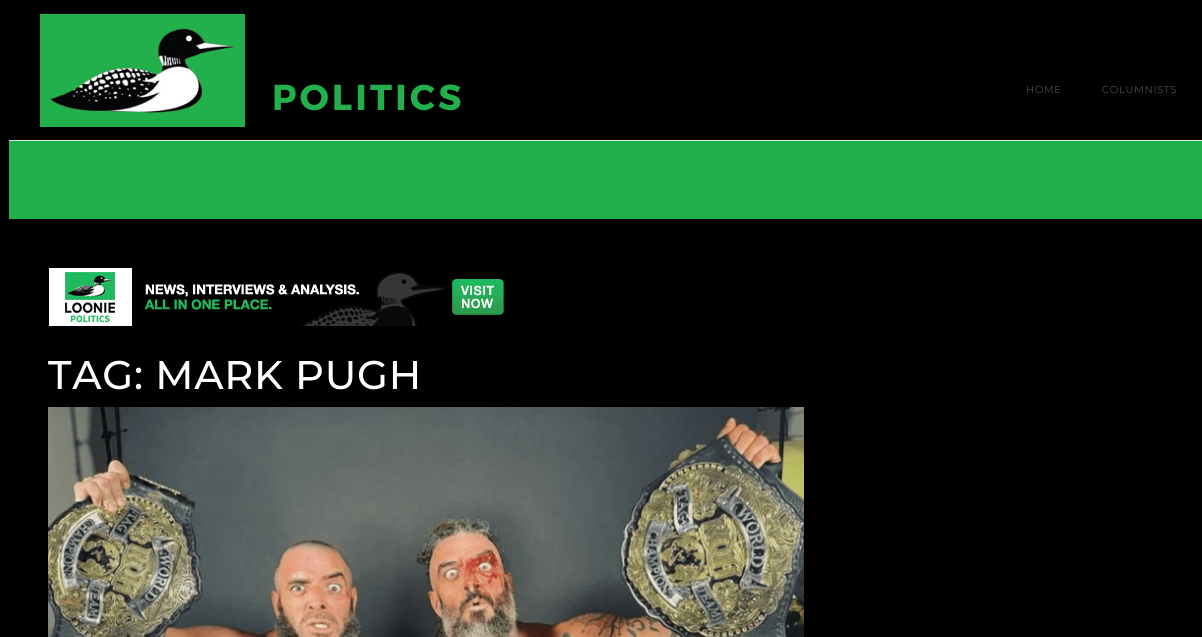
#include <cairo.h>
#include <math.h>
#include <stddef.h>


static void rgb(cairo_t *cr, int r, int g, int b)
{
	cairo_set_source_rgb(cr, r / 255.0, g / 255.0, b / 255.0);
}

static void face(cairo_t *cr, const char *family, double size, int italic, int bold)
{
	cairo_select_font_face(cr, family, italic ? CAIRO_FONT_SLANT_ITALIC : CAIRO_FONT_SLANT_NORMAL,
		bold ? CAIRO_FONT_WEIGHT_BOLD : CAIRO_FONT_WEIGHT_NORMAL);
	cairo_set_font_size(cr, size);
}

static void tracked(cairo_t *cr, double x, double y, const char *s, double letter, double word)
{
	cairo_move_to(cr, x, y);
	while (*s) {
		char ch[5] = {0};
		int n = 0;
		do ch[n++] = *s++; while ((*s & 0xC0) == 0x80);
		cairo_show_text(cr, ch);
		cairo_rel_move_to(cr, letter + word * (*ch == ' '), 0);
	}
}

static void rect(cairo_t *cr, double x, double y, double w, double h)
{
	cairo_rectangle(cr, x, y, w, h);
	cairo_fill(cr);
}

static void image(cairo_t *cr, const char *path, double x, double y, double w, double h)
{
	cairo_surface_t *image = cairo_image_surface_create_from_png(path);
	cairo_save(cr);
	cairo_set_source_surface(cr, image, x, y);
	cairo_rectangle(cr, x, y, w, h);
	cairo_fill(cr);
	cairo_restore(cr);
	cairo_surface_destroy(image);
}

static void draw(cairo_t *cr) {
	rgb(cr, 0, 0, 0);
	cairo_paint(cr);
	rgb(cr, 222, 226, 230);
	rect(cr, 9, 140, 1193, 1);
	image(cr, "image0.png", 40, 14, 421, 113);
	face(cr, "Montserrat Light", 10, 0, 0);
	rgb(cr, 101, 108, 122);
	tracked(cr, 1026, 93, "HOME", 0.75, 0);
	tracked(cr, 1102, 93, "COLUMNISTS", 0.75, 0);
	rgb(cr, 34, 176, 76);
	rect(cr, 9, 141, 1193, 78);
	image(cr, "image1.png", 49, 268, 455, 58);
	face(cr, "Montserrat Medium", 40, 0, 0);
	rgb(cr, 255, 255, 255);
	tracked(cr, 48, 389, "TAG: MARK PUGH", 0.75, 0);
	image(cr, "image2.png", 48, 407, 756, 230);
}

int main(void) {
	cairo_surface_t *surface = cairo_image_surface_create(CAIRO_FORMAT_RGB24, 1202, 637);
	cairo_t *cr = cairo_create(surface);
	cairo_font_options_t *options = cairo_font_options_create();
	cairo_font_options_set_hint_metrics(options, CAIRO_HINT_METRICS_OFF);
	cairo_font_options_set_hint_style(options, CAIRO_HINT_STYLE_NONE);
	cairo_set_font_options(cr, options);
	cairo_set_miter_limit(cr, 4);
	draw(cr);
	cairo_surface_write_to_png(surface, "render.png");
	cairo_font_options_destroy(options);
	cairo_destroy(cr);
	cairo_surface_destroy(surface);
	return 0;
}
